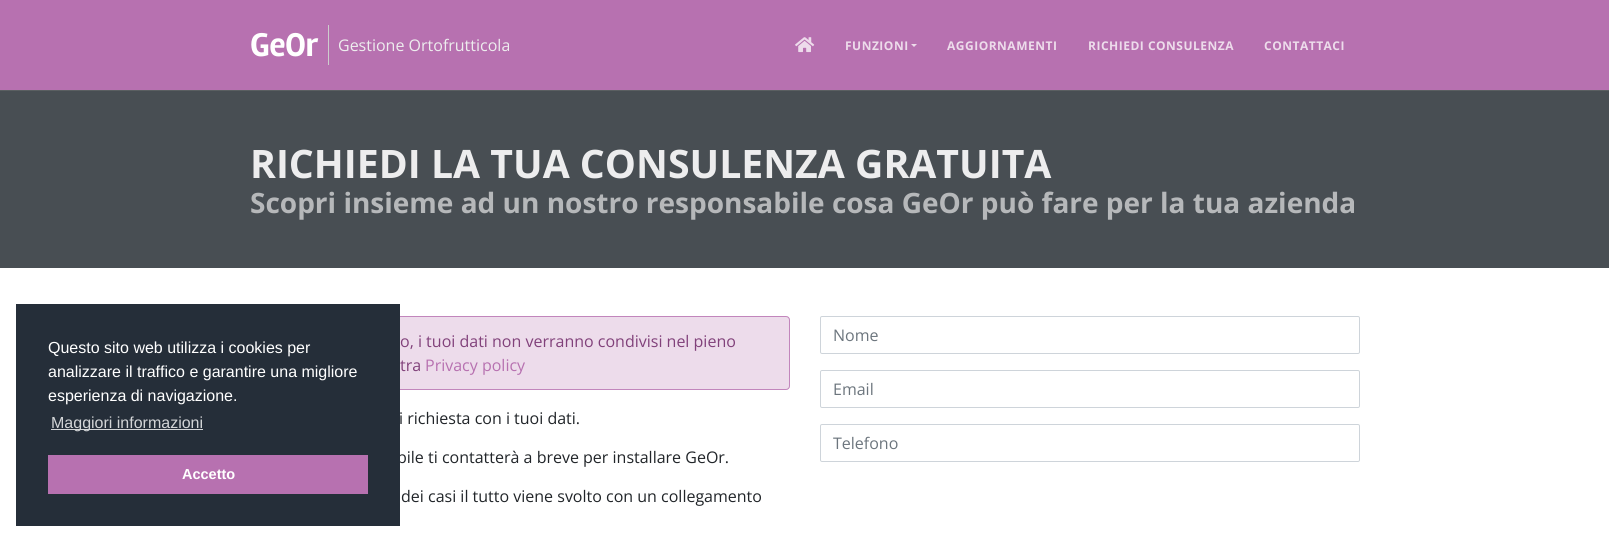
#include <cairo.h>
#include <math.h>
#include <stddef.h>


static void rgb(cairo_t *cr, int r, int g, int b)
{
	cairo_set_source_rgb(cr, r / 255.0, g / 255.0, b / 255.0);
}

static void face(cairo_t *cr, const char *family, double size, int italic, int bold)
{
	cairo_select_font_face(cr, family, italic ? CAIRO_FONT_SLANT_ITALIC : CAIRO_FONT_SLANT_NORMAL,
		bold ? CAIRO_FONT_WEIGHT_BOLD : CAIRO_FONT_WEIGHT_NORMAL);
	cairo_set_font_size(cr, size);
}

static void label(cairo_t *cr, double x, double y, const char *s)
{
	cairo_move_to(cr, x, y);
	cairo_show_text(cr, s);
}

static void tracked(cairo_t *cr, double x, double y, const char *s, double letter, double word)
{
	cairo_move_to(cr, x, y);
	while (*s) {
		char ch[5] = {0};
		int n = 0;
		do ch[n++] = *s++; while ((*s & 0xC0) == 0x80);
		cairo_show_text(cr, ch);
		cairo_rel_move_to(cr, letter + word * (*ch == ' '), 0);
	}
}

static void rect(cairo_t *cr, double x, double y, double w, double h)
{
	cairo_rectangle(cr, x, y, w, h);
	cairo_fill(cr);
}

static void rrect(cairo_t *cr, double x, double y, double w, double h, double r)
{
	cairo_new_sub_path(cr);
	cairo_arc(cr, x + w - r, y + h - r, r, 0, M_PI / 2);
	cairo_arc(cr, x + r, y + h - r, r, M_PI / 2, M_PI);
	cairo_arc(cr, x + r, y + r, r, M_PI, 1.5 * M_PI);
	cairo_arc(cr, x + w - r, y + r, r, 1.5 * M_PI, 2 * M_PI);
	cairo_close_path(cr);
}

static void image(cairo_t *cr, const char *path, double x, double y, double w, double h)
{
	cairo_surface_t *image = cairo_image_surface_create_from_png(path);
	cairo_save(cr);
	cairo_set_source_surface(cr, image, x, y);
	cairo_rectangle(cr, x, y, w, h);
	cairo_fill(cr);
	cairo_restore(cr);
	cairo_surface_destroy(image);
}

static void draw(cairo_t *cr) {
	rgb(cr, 255, 255, 255);
	cairo_paint(cr);
	rgb(cr, 237, 220, 235);
	rrect(cr, 250, 316, 540, 74, 4);
	cairo_fill(cr);
	rrect(cr, 250.5, 316.5, 539, 73, 3.5);
	cairo_set_source_rgba(cr, 0.718, 0.443, 0.69, 0.8);
	cairo_set_line_width(cr, 1);
	cairo_stroke(cr);
	face(cr, "Open Sans", 16, 0, 0);
	rgb(cr, 129, 65, 122);
	label(cr, 400, 371, "tra");
	rgb(cr, 33, 37, 41);
	label(cr, 397, 463, "bile ti contatterà a breve per installare GeOr.");
	rgb(cr, 37, 46, 57);
	rect(cr, 16, 304, 384, 222);
	face(cr, "Liberation Sans", 16, 0, 0);
	rgb(cr, 255, 255, 255);
	label(cr, 48, 353, "Questo sito web utilizza i cookies per");
	label(cr, 48, 377, "analizzare il traffico e garantire una migliore");
	label(cr, 48, 401, "esperienza di navigazione.");
	rgb(cr, 211, 213, 215);
	rect(cr, 51, 429, 152, 1);
	label(cr, 51, 428, "Maggiori informazioni");
	rgb(cr, 183, 113, 176);
	rect(cr, 48, 455, 320, 39);
	face(cr, "Liberation Sans", 14.5, 0, 1);
	rgb(cr, 255, 255, 255);
	label(cr, 182, 479, "Accetto");
	rgb(cr, 183, 113, 176);
	rect(cr, 0, 0, 1609, 90);
	rgb(cr, 90, 95, 97);
	rect(cr, 0, 90, 1609, 1);
	face(cr, "Rambla", 34, 0, 1);
	rgb(cr, 255, 255, 255);
	tracked(cr, 250, 56, "GeOr", -0.5, 0);
	rgb(cr, 205, 205, 205);
	rect(cr, 328, 25, 1, 40);
	face(cr, "Open Sans", 16, 0, 0);
	rgb(cr, 237, 237, 238);
	label(cr, 338, 51, "Gestione Ortofrutticola");
	image(cr, "image0.png", 795, 37, 20, 16);
	face(cr, "Open Sans", 12, 0, 1);
	rgb(cr, 237, 220, 235);
	tracked(cr, 845, 50, "FUNZIONI", 0.5, 0);
	cairo_new_path(cr);
	cairo_move_to(cr, 911, 44);
	cairo_line_to(cr, 917, 44);
	cairo_line_to(cr, 914, 47);
	cairo_close_path(cr);
	cairo_fill(cr);
	tracked(cr, 947, 50, "AGGIORNAMENTI", 0.5, 0);
	tracked(cr, 1088, 50, "RICHIEDI CONSULENZA", 0.5, 0);
	tracked(cr, 1264, 50, "CONTATTACI", 0.5, 0);
	rgb(cr, 72, 78, 83);
	rect(cr, 0, 91, 1609, 177);
	face(cr, "Open Sans", 39.2, 0, 1);
	rgb(cr, 237, 237, 238);
	label(cr, 250, 178, "RICHIEDI LA TUA CONSULENZA GRATUITA");
	face(cr, "Open Sans", 28, 0, 1);
	rgb(cr, 182, 184, 186);
	label(cr, 250, 213, "Scopri insieme ad un nostro responsabile cosa GeOr può fare per la tua azienda");
	face(cr, "Open Sans", 16, 0, 0);
	rgb(cr, 129, 65, 122);
	label(cr, 400, 347, "o, i tuoi dati non verranno condivisi nel pieno");
	rgb(cr, 183, 113, 176);
	label(cr, 425, 371, "Privacy policy");
	rgb(cr, 33, 37, 41);
	label(cr, 399, 424, "i richiesta con i tuoi dati.");
	label(cr, 401, 502, "dei casi il tutto viene svolto con un collegamento");
	rrect(cr, 820.5, 316.5, 539, 37, 1.5);
	rgb(cr, 206, 212, 218);
	cairo_stroke(cr);
	rgb(cr, 108, 117, 125);
	label(cr, 833, 341, "Nome");
	rrect(cr, 820.5, 370.5, 539, 37, 1.5);
	rgb(cr, 206, 212, 218);
	cairo_stroke(cr);
	rgb(cr, 108, 117, 125);
	label(cr, 833, 395, "Email");
	rrect(cr, 820.5, 424.5, 539, 37, 1.5);
	rgb(cr, 206, 212, 218);
	cairo_stroke(cr);
	rgb(cr, 108, 117, 125);
	label(cr, 833, 449, "Telefono");
}

int main(void) {
	cairo_surface_t *surface = cairo_image_surface_create(CAIRO_FORMAT_RGB24, 1609, 542);
	cairo_t *cr = cairo_create(surface);
	cairo_font_options_t *options = cairo_font_options_create();
	cairo_font_options_set_hint_metrics(options, CAIRO_HINT_METRICS_OFF);
	cairo_font_options_set_hint_style(options, CAIRO_HINT_STYLE_NONE);
	cairo_set_font_options(cr, options);
	cairo_set_miter_limit(cr, 4);
	draw(cr);
	cairo_surface_write_to_png(surface, "render.png");
	cairo_font_options_destroy(options);
	cairo_destroy(cr);
	cairo_surface_destroy(surface);
	return 0;
}
